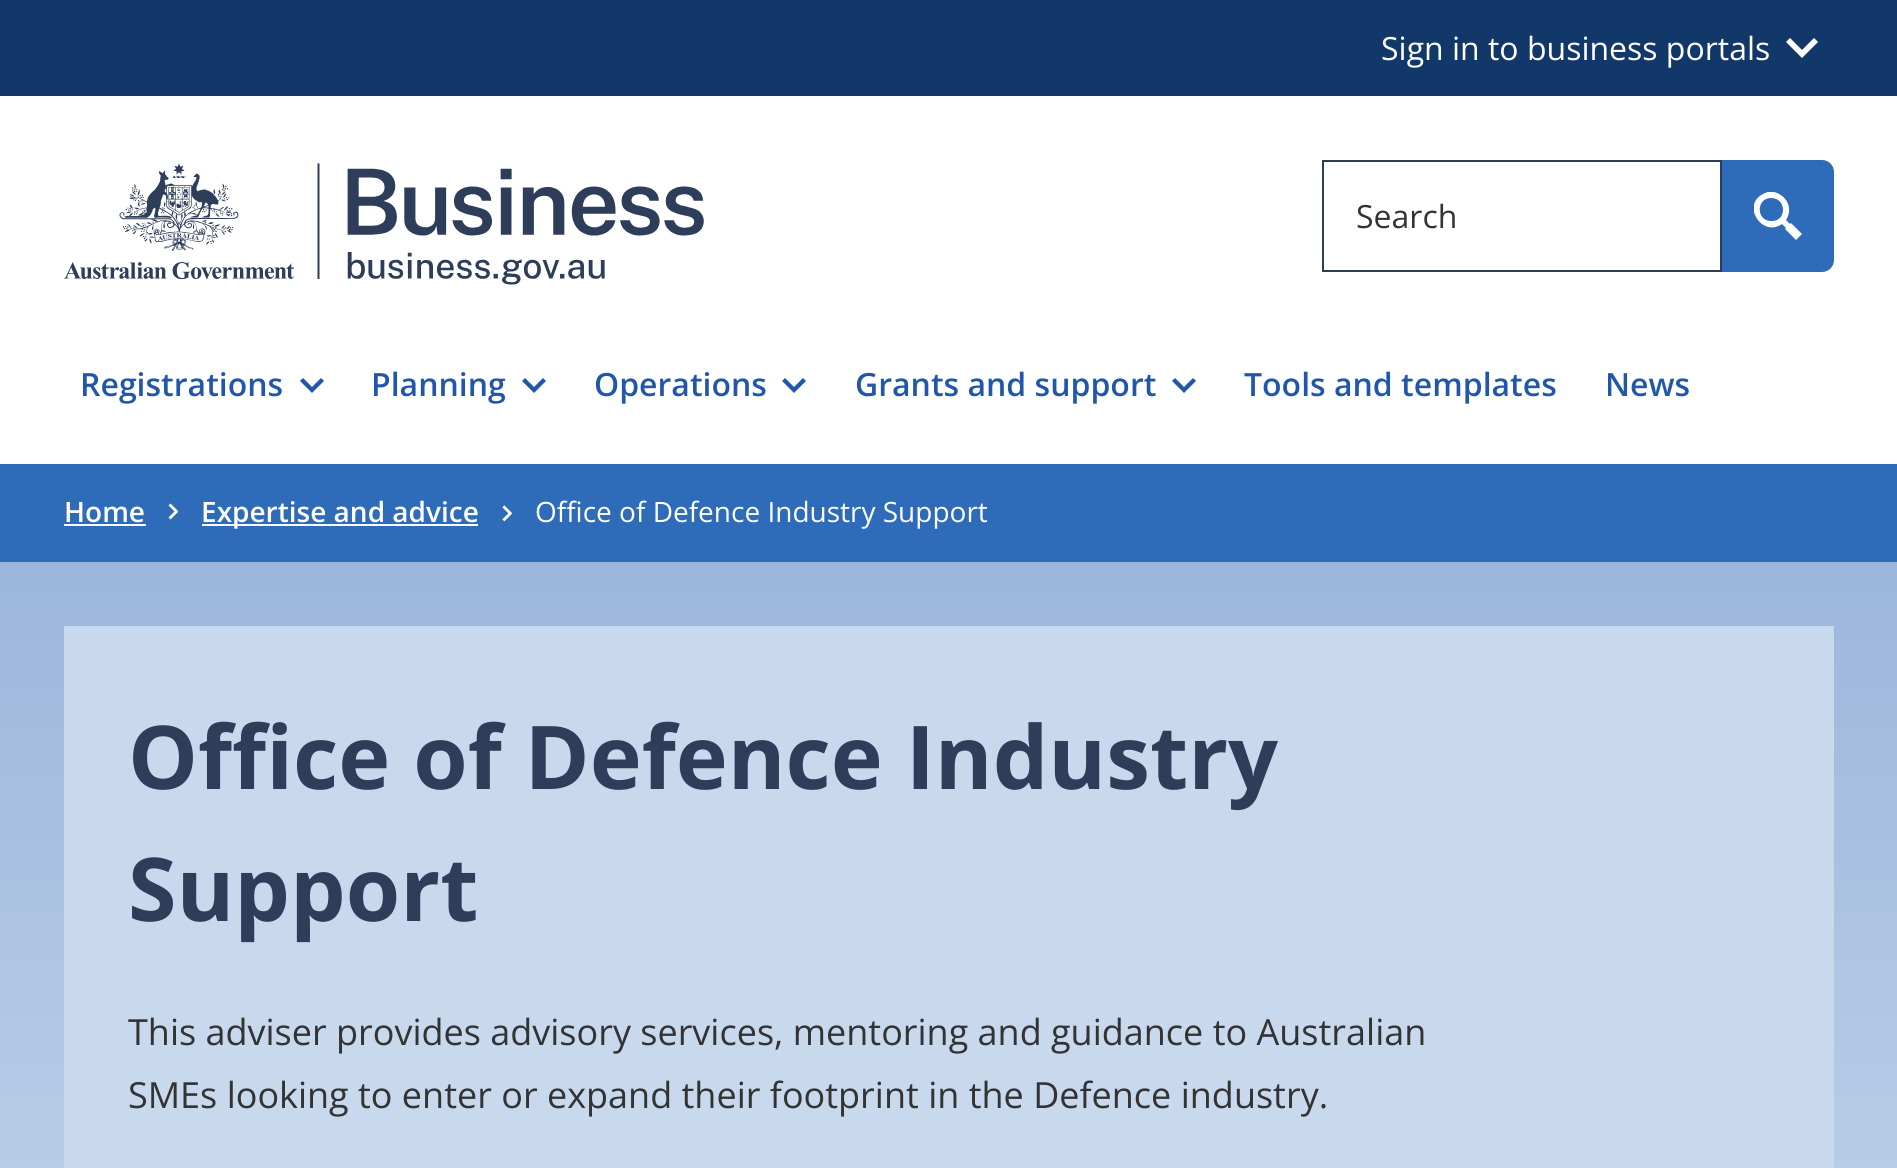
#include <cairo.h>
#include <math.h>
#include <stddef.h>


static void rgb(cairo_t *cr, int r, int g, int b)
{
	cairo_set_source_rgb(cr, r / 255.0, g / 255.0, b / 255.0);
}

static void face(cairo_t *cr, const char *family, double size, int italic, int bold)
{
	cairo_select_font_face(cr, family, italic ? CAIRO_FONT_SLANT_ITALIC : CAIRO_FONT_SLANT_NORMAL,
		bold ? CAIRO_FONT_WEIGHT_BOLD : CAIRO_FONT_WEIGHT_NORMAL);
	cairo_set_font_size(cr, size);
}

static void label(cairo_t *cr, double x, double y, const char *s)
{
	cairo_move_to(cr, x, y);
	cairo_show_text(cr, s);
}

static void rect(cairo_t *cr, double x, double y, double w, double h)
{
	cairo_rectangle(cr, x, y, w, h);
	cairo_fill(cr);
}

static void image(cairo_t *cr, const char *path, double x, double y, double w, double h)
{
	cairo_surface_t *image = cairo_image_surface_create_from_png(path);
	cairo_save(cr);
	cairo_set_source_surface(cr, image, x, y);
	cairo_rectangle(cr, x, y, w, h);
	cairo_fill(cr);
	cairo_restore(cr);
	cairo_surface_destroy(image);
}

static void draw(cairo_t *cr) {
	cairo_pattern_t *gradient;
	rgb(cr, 255, 255, 255);
	cairo_paint(cr);
	rgb(cr, 17, 56, 105);
	rect(cr, 0, 0, 1897, 96);
	face(cr, "Open Sans", 32, 0, 0);
	rgb(cr, 255, 255, 255);
	label(cr, 1381, 60, "Sign in to business portals");
	cairo_new_path(cr);
	cairo_move_to(cr, 1802, 50);
	cairo_line_to(cr, 1790, 38);
	cairo_line_to(cr, 1786, 42);
	cairo_line_to(cr, 1802, 58);
	cairo_line_to(cr, 1818, 42);
	cairo_line_to(cr, 1814, 38);
	cairo_close_path(cr);
	cairo_fill(cr);
	image(cr, "image0.png", 64, 163, 640, 122);
	cairo_rectangle(cr, 1323, 161, 398, 110);
	rgb(cr, 46, 62, 90);
	cairo_stroke(cr);
	rgb(cr, 51, 51, 51);
	label(cr, 1356, 228, "Search");
	rgb(cr, 46, 108, 185);
	cairo_new_path(cr);
	cairo_move_to(cr, 1724, 162);
	cairo_line_to(cr, 1822, 162);
	cairo_curve_to(cr, 1827.5, 162, 1832, 166.5, 1832, 172);
	cairo_line_to(cr, 1832, 260);
	cairo_curve_to(cr, 1832, 265.5, 1827.5, 270, 1822, 270);
	cairo_line_to(cr, 1724, 270);
	cairo_close_path(cr);
	cairo_fill_preserve(cr);
	cairo_set_line_width(cr, 4);
	cairo_stroke(cr);
	cairo_save(cr);
	cairo_rectangle(cr, 1754, 192, 48, 48);
	cairo_clip(cr);
	rgb(cr, 255, 255, 255);
	cairo_new_path(cr);
	cairo_move_to(cr, 1796, 240);
	cairo_line_to(cr, 1785, 229);
	cairo_line_to(cr, 1786, 228);
	cairo_line_to(cr, 1782, 224);
	cairo_curve_to(cr, 1762, 238, 1741, 205, 1763, 194);
	cairo_curve_to(cr, 1768, 191, 1774, 191, 1779, 194);
	cairo_curve_to(cr, 1789, 199, 1792, 211, 1786, 220);
	cairo_line_to(cr, 1790, 224);
	cairo_line_to(cr, 1791, 223);
	cairo_line_to(cr, 1802, 234);
	cairo_close_path(cr);
	cairo_move_to(cr, 1771, 198);
	cairo_curve_to(cr, 1756, 198, 1756, 221, 1771, 221);
	cairo_curve_to(cr, 1787, 222, 1787, 198, 1771, 198);
	cairo_fill(cr);
	cairo_restore(cr);
	face(cr, "Open Sans SemiBold", 32, 0, 0);
	rgb(cr, 33, 87, 170);
	label(cr, 80, 396, "Registrations");
	cairo_new_path(cr);
	cairo_move_to(cr, 312, 387);
	cairo_line_to(cr, 321, 378);
	cairo_line_to(cr, 324, 381);
	cairo_line_to(cr, 312, 393);
	cairo_line_to(cr, 300, 381);
	cairo_line_to(cr, 303, 378);
	cairo_close_path(cr);
	cairo_fill(cr);
	label(cr, 371, 396, "Planning");
	cairo_new_path(cr);
	cairo_move_to(cr, 534, 387);
	cairo_line_to(cr, 543, 378);
	cairo_line_to(cr, 546, 381);
	cairo_line_to(cr, 534, 393);
	cairo_line_to(cr, 522, 381);
	cairo_line_to(cr, 525, 378);
	cairo_close_path(cr);
	cairo_fill(cr);
	label(cr, 594, 396, "Operations");
	cairo_new_path(cr);
	cairo_move_to(cr, 794, 387);
	cairo_line_to(cr, 803, 378);
	cairo_line_to(cr, 806, 381);
	cairo_line_to(cr, 794, 393);
	cairo_line_to(cr, 782, 381);
	cairo_line_to(cr, 785, 378);
	cairo_close_path(cr);
	cairo_fill(cr);
	label(cr, 855, 396, "Grants and support");
	cairo_new_path(cr);
	cairo_move_to(cr, 1184, 387);
	cairo_line_to(cr, 1193, 378);
	cairo_line_to(cr, 1196, 381);
	cairo_line_to(cr, 1184, 393);
	cairo_line_to(cr, 1172, 381);
	cairo_line_to(cr, 1175, 378);
	cairo_close_path(cr);
	cairo_fill(cr);
	label(cr, 1244, 396, "Tools and templates");
	label(cr, 1605, 396, "News");
	rgb(cr, 46, 108, 185);
	rect(cr, 0, 464, 1897, 98);
	face(cr, "Open Sans SemiBold", 28, 0, 0);
	rgb(cr, 255, 255, 255);
	label(cr, 64, 522, "Home");
	rect(cr, 64, 524, 82, 2);
	image(cr, "image1.png", 168, 503, 10, 17);
	rect(cr, 202, 524, 276, 2);
	label(cr, 201, 522, "Expertise and advice");
	image(cr, "image2.png", 502, 505, 10, 17);
	face(cr, "Open Sans", 28, 0, 0);
	label(cr, 535, 522, "Office of Defence Industry Support");
	gradient = cairo_pattern_create_linear(949, 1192, 949, 562);
	cairo_pattern_add_color_stop_rgba(gradient, 0, 0.722, 0.804, 0.906, 1);
	cairo_pattern_add_color_stop_rgba(gradient, 1, 0.612, 0.714, 0.859, 1);
	cairo_set_source(cr, gradient);
	cairo_pattern_destroy(gradient);
	rect(cr, 0, 562, 1897, 606);
	rgb(cr, 200, 217, 238);
	rect(cr, 64, 626, 1770, 542);
	face(cr, "Open Sans", 88, 0, 1);
	rgb(cr, 46, 62, 90);
	label(cr, 128, 789, "Office of Defence Industry");
	label(cr, 128, 921, "Support");
	face(cr, "Open Sans", 36, 0, 0);
	rgb(cr, 51, 51, 51);
	label(cr, 128, 1045, "This adviser provides advisory services, mentoring and guidance to Australian");
	label(cr, 128, 1108, "SMEs looking to enter or expand their footprint in the Defence industry.");
}

int main(void) {
	cairo_surface_t *surface = cairo_image_surface_create(CAIRO_FORMAT_RGB24, 1897, 1168);
	cairo_t *cr = cairo_create(surface);
	cairo_font_options_t *options = cairo_font_options_create();
	cairo_font_options_set_hint_metrics(options, CAIRO_HINT_METRICS_OFF);
	cairo_font_options_set_hint_style(options, CAIRO_HINT_STYLE_NONE);
	cairo_set_font_options(cr, options);
	cairo_set_miter_limit(cr, 4);
	draw(cr);
	cairo_surface_write_to_png(surface, "render.png");
	cairo_font_options_destroy(options);
	cairo_destroy(cr);
	cairo_surface_destroy(surface);
	return 0;
}
